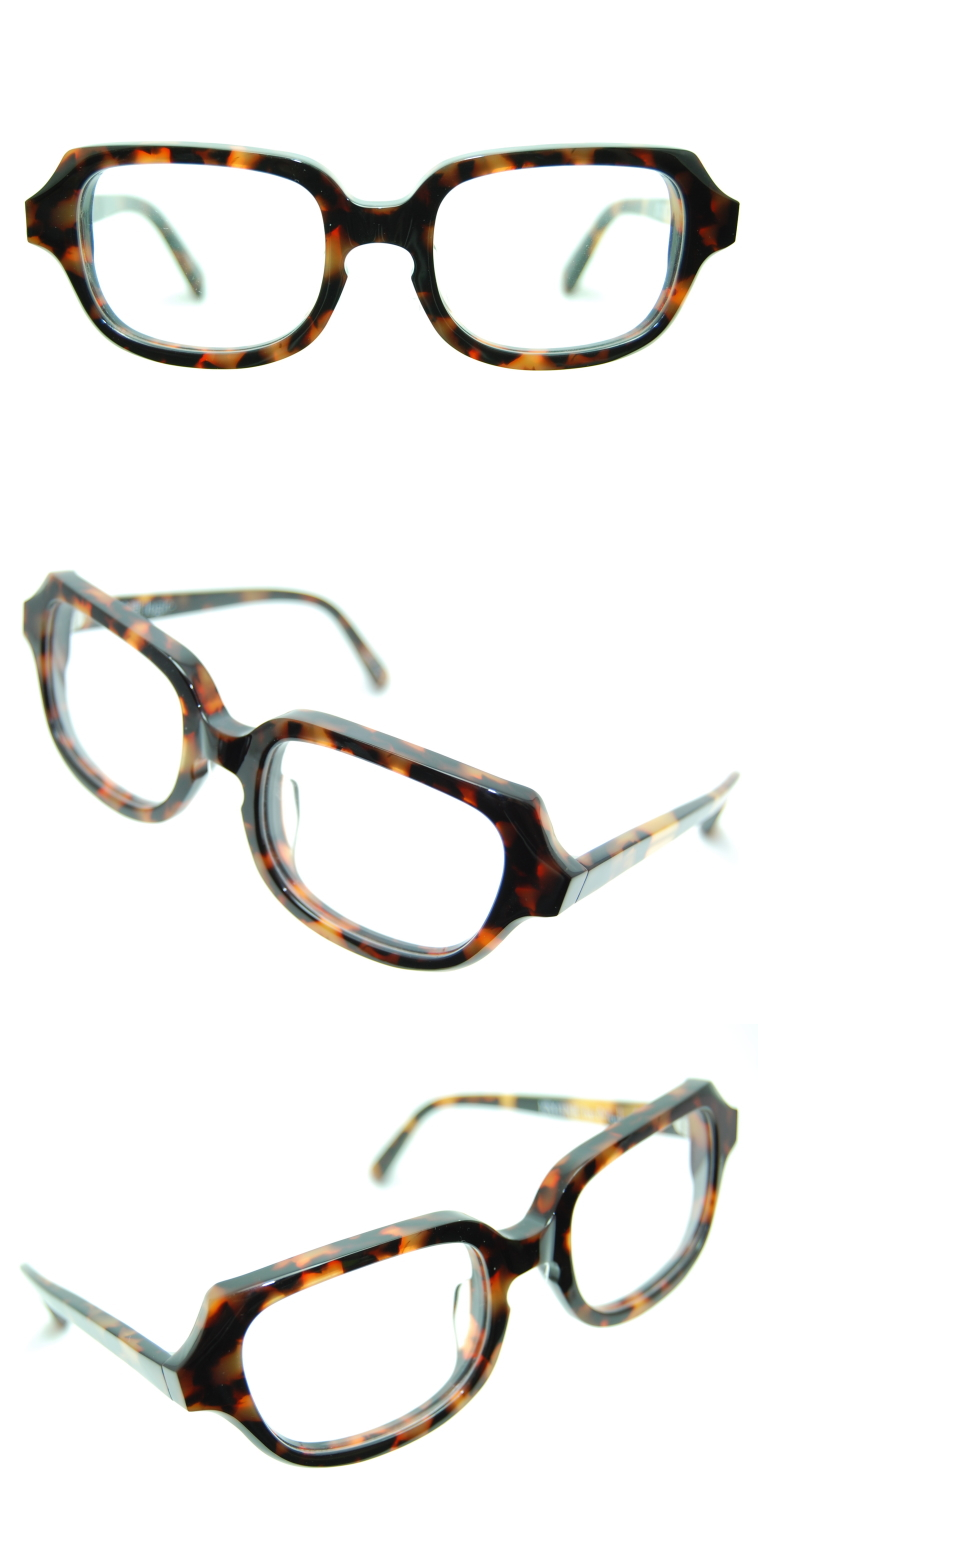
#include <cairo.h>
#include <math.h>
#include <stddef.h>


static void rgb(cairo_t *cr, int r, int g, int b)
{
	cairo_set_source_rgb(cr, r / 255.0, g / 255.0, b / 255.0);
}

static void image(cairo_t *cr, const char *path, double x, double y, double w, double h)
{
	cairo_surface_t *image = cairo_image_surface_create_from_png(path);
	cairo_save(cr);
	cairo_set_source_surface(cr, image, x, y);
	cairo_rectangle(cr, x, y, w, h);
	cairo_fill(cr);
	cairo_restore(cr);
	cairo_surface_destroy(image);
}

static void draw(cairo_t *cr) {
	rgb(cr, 255, 255, 255);
	cairo_paint(cr);
	image(cr, "image0.png", 23, 141, 719, 230);
	image(cr, "image1.png", 20, 569, 722, 404);
	image(cr, "image2.png", 18, 1024, 740, 445);
}

int main(void) {
	cairo_surface_t *surface = cairo_image_surface_create(CAIRO_FORMAT_RGB24, 953, 1558);
	cairo_t *cr = cairo_create(surface);
	cairo_font_options_t *options = cairo_font_options_create();
	cairo_font_options_set_hint_metrics(options, CAIRO_HINT_METRICS_OFF);
	cairo_font_options_set_hint_style(options, CAIRO_HINT_STYLE_NONE);
	cairo_set_font_options(cr, options);
	cairo_set_miter_limit(cr, 4);
	draw(cr);
	cairo_surface_write_to_png(surface, "render.png");
	cairo_font_options_destroy(options);
	cairo_destroy(cr);
	cairo_surface_destroy(surface);
	return 0;
}
